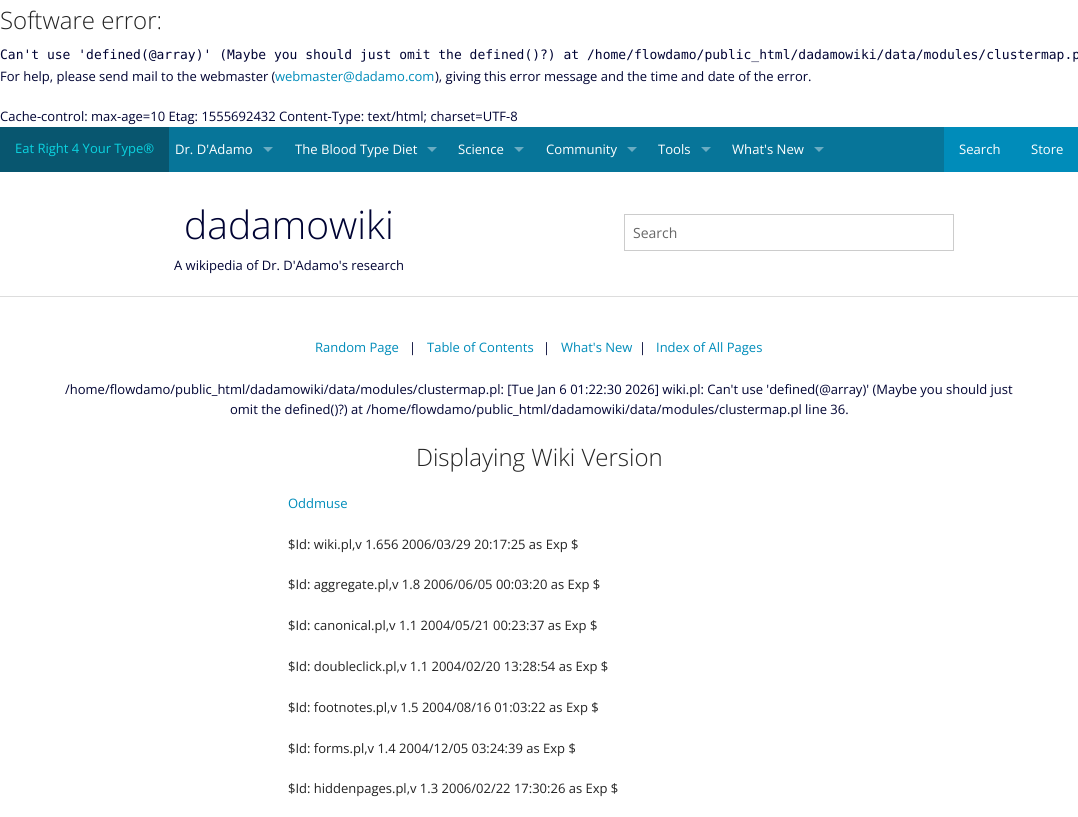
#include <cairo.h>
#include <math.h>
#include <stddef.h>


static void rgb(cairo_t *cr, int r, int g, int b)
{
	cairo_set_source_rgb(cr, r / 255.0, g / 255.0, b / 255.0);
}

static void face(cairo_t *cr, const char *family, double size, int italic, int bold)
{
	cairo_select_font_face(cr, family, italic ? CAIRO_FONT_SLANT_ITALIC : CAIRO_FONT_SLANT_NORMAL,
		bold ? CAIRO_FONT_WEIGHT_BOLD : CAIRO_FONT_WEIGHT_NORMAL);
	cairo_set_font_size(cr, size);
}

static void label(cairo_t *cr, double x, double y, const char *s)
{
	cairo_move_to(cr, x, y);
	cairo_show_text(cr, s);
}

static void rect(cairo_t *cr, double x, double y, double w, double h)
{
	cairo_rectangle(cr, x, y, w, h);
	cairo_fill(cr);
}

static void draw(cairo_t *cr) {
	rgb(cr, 255, 255, 255);
	cairo_paint(cr);
	face(cr, "Open Sans Light", 24, 0, 0);
	rgb(cr, 34, 34, 34);
	label(cr, 0, 29, "Software error:");
	face(cr, "DejaVu Sans Mono", 13, 0, 0);
	rgb(cr, 0, 3, 51);
	label(cr, 0, 59, "Can't use 'defined(@array)' (Maybe you should just omit the defined()?) at /home/flowdamo/public_html/dadamowiki/data/modules/clustermap.p");
	face(cr, "Open Sans", 13, 0, 0);
	label(cr, 0, 81, "For help, please send mail to the webmaster (");
	rgb(cr, 0, 140, 186);
	label(cr, 275, 81, "webmaster@dadamo.com");
	rgb(cr, 0, 3, 51);
	label(cr, 435, 81, "), giving this error message and the time and date of the error.");
	label(cr, 0, 121, "Cache-control: max-age=10 Etag: 1555692432 Content-Type: text/html; charset=UTF-8");
	rgb(cr, 7, 117, 153);
	rect(cr, 839, 127, 105, 45);
	rgb(cr, 8, 86, 111);
	rect(cr, 0, 127, 169, 45);
	rgb(cr, 10, 211, 224);
	label(cr, 15, 153, "Eat Right 4 Your Type®");
	rgb(cr, 7, 117, 153);
	rect(cr, 169, 127, 670, 45);
	face(cr, "Open Sans", 13.1, 0, 0);
	rgb(cr, 255, 255, 255);
	label(cr, 175, 154, "Dr. D'Adamo");
	rgb(cr, 106, 172, 194);
	cairo_new_path(cr);
	cairo_move_to(cr, 263, 147);
	cairo_line_to(cr, 273, 147);
	cairo_line_to(cr, 268, 152);
	cairo_close_path(cr);
	cairo_fill(cr);
	rgb(cr, 255, 255, 255);
	label(cr, 295, 154, "The Blood Type Diet");
	rgb(cr, 106, 172, 194);
	cairo_new_path(cr);
	cairo_move_to(cr, 427, 147);
	cairo_line_to(cr, 437, 147);
	cairo_line_to(cr, 432, 152);
	cairo_close_path(cr);
	cairo_fill(cr);
	rgb(cr, 255, 255, 255);
	label(cr, 458, 154, "Science");
	rgb(cr, 106, 172, 194);
	cairo_new_path(cr);
	cairo_move_to(cr, 514, 147);
	cairo_line_to(cr, 524, 147);
	cairo_line_to(cr, 519, 152);
	cairo_close_path(cr);
	cairo_fill(cr);
	rgb(cr, 255, 255, 255);
	label(cr, 546, 154, "Community");
	rgb(cr, 106, 172, 194);
	cairo_new_path(cr);
	cairo_move_to(cr, 627, 147);
	cairo_line_to(cr, 637, 147);
	cairo_line_to(cr, 632, 152);
	cairo_close_path(cr);
	cairo_fill(cr);
	rgb(cr, 255, 255, 255);
	label(cr, 658, 154, "Tools");
	rgb(cr, 106, 172, 194);
	cairo_new_path(cr);
	cairo_move_to(cr, 701, 147);
	cairo_line_to(cr, 711, 147);
	cairo_line_to(cr, 706, 152);
	cairo_close_path(cr);
	cairo_fill(cr);
	rgb(cr, 255, 255, 255);
	label(cr, 732, 154, "What's New");
	rgb(cr, 106, 172, 194);
	cairo_new_path(cr);
	cairo_move_to(cr, 814, 147);
	cairo_line_to(cr, 824, 147);
	cairo_line_to(cr, 819, 152);
	cairo_close_path(cr);
	cairo_fill(cr);
	rgb(cr, 0, 140, 186);
	rect(cr, 944, 127, 134, 45);
	rgb(cr, 255, 255, 255);
	label(cr, 959, 154, "Search");
	label(cr, 1031, 154, "Store");
	face(cr, "Open Sans Light", 39, 0, 0);
	rgb(cr, 0, 3, 51);
	label(cr, 184, 239, "dadamowiki");
	face(cr, "Open Sans", 13, 0, 0);
	label(cr, 174, 270, "A wikipedia of Dr. D'Adamo's research");
	cairo_rectangle(cr, 624.5, 214.5, 329, 36);
	rgb(cr, 204, 204, 204);
	cairo_set_line_width(cr, 1);
	cairo_stroke(cr);
	face(cr, "Open Sans", 14, 0, 0);
	rgb(cr, 102, 102, 102);
	label(cr, 633, 238, "Search");
	rgb(cr, 221, 221, 221);
	rect(cr, 0, 296, 1078, 1);
	face(cr, "Open Sans", 13, 0, 0);
	rgb(cr, 0, 140, 186);
	label(cr, 315, 352, "Random Page");
	rgb(cr, 0, 3, 51);
	label(cr, 409, 352, "|");
	rgb(cr, 0, 140, 186);
	label(cr, 427, 352, "Table of Contents");
	rgb(cr, 0, 3, 51);
	label(cr, 543, 352, "|");
	rgb(cr, 0, 140, 186);
	label(cr, 561, 352, "What's New");
	rgb(cr, 0, 3, 51);
	label(cr, 639, 352, "|");
	rgb(cr, 0, 140, 186);
	label(cr, 656, 352, "Index of All Pages");
	rgb(cr, 0, 3, 51);
	label(cr, 65, 394, "/home/flowdamo/public_html/dadamowiki/data/modules/clustermap.pl: [Tue Jan 6 01:22:30 2026] wiki.pl: Can't use 'defined(@array)' (Maybe you should just");
	label(cr, 230, 414, "omit the defined()?) at /home/flowdamo/public_html/dadamowiki/data/modules/clustermap.pl line 36.");
	face(cr, "Open Sans Light", 24, 0, 0);
	rgb(cr, 34, 34, 34);
	label(cr, 416, 466, "Displaying Wiki Version");
	face(cr, "Open Sans", 13, 0, 0);
	rgb(cr, 0, 140, 186);
	label(cr, 288, 508, "Oddmuse");
	rgb(cr, 34, 34, 34);
	label(cr, 288, 549, "$Id: wiki.pl,v 1.656 2006/03/29 20:17:25 as Exp $");
	label(cr, 288, 589, "$Id: aggregate.pl,v 1.8 2006/06/05 00:03:20 as Exp $");
	label(cr, 288, 630, "$Id: canonical.pl,v 1.1 2004/05/21 00:23:37 as Exp $");
	label(cr, 288, 671, "$Id: doubleclick.pl,v 1.1 2004/02/20 13:28:54 as Exp $");
	label(cr, 288, 712, "$Id: footnotes.pl,v 1.5 2004/08/16 01:03:22 as Exp $");
	label(cr, 288, 753, "$Id: forms.pl,v 1.4 2004/12/05 03:24:39 as Exp $");
	label(cr, 288, 793, "$Id: hiddenpages.pl,v 1.3 2006/02/22 17:30:26 as Exp $");
}

int main(void) {
	cairo_surface_t *surface = cairo_image_surface_create(CAIRO_FORMAT_RGB24, 1078, 817);
	cairo_t *cr = cairo_create(surface);
	cairo_font_options_t *options = cairo_font_options_create();
	cairo_font_options_set_hint_metrics(options, CAIRO_HINT_METRICS_OFF);
	cairo_font_options_set_hint_style(options, CAIRO_HINT_STYLE_NONE);
	cairo_set_font_options(cr, options);
	cairo_set_miter_limit(cr, 4);
	draw(cr);
	cairo_surface_write_to_png(surface, "render.png");
	cairo_font_options_destroy(options);
	cairo_destroy(cr);
	cairo_surface_destroy(surface);
	return 0;
}
